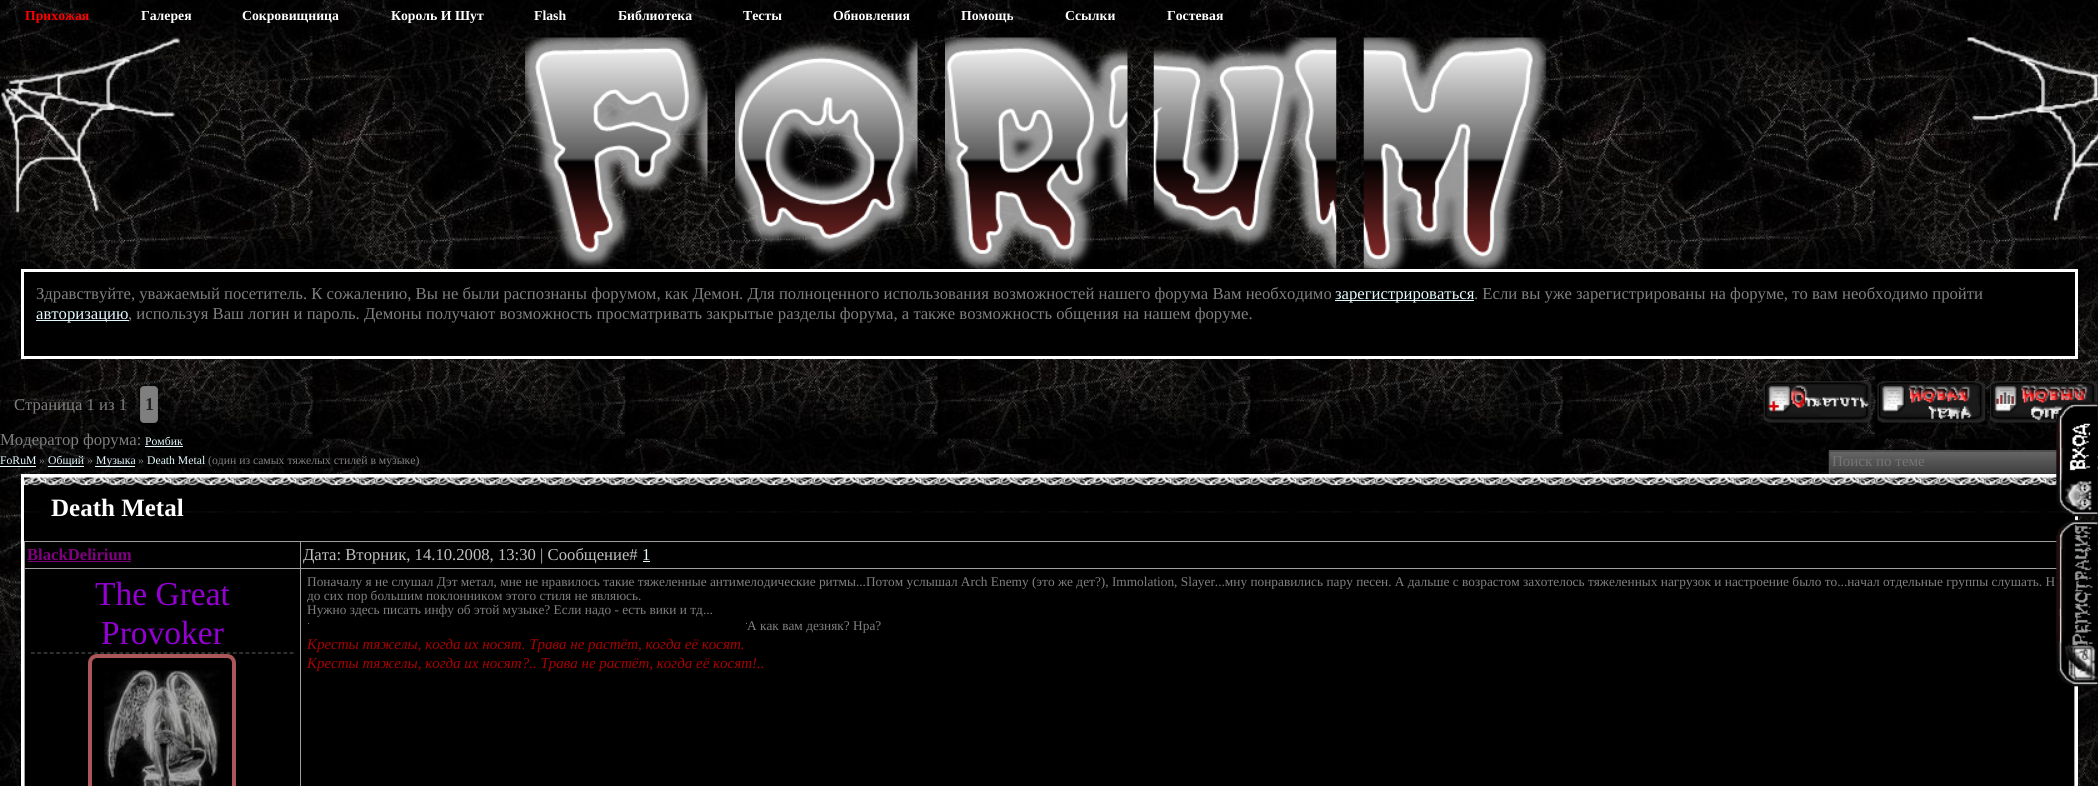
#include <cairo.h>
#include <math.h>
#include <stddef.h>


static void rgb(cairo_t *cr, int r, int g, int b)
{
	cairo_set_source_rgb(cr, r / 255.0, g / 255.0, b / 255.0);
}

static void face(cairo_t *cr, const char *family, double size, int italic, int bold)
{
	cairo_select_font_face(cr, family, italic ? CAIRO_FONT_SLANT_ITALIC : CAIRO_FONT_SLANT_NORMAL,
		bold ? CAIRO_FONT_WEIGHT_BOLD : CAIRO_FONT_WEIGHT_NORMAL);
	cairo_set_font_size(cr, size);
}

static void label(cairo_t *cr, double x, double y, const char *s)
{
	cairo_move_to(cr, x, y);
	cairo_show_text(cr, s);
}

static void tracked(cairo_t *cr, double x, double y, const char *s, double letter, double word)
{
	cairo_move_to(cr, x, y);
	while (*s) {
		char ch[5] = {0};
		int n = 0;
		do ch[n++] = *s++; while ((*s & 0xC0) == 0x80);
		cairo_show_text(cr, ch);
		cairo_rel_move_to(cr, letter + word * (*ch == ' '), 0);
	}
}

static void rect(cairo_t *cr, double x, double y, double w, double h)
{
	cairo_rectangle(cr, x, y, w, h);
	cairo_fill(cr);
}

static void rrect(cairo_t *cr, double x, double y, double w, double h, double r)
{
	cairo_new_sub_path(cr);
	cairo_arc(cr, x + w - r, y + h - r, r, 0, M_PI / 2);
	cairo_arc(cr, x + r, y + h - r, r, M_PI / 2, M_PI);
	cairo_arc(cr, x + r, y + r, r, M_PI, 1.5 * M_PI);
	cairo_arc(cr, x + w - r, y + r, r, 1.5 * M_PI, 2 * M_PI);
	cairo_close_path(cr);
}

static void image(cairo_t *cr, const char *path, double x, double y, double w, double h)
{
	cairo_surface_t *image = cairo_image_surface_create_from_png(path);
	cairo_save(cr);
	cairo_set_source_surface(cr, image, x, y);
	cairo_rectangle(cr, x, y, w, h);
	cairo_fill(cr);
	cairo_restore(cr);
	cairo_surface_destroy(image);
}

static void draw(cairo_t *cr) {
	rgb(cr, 255, 255, 255);
	cairo_paint(cr);
	image(cr, "image0.png", 0, 0, 2098, 786);
	face(cr, "Liberation Serif", 13.75, 0, 1);
	rgb(cr, 255, 0, 0);
	label(cr, 25, 20, "Прихожая");
	rgb(cr, 255, 255, 255);
	label(cr, 141, 20, "Галерея");
	label(cr, 242, 20, "Сокровищница");
	label(cr, 391, 20, "Король И Шут");
	label(cr, 534, 20, "Flash");
	label(cr, 618, 20, "Библиотека");
	label(cr, 743, 20, "Тесты");
	label(cr, 833, 20, "Обновления");
	label(cr, 961, 20, "Помощь");
	label(cr, 1065, 20, "Ссылки");
	label(cr, 1167, 20, "Гостевая");
	image(cr, "image1.png", 0, 37, 180, 176);
	image(cr, "image2.png", 525, 37, 183, 232);
	image(cr, "image3.png", 735, 38, 183, 219);
	image(cr, "image4.png", 945, 37, 183, 232);
	image(cr, "image5.png", 1153, 37, 184, 232);
	image(cr, "image6.png", 1363, 37, 184, 232);
	image(cr, "image7.png", 1967, 37, 131, 185);
	rgb(cr, 0, 0, 0);
	rect(cr, 24, 272, 2051, 84);
	rgb(cr, 255, 255, 255);
	rect(cr, 21, 269, 2057, 3);
	rect(cr, 2075, 269, 3, 90);
	rect(cr, 21, 356, 2057, 3);
	rect(cr, 21, 269, 3, 90);
	face(cr, "Liberation Serif", 16.67, 0, 0);
	rgb(cr, 128, 128, 128);
	label(cr, 36, 299, "Здравствуйте, уважаемый посетитель. К сожалению, Вы не были распознаны форумом, как Демон. Для полноценного использования возможностей нашего форума Вам необходимо");
	rgb(cr, 228, 250, 253);
	rect(cr, 1335, 300, 139, 1);
	label(cr, 1335, 299, "зарегистрироваться");
	rgb(cr, 128, 128, 128);
	label(cr, 1474, 299, ". Если вы уже зарегистрированы на форуме, то вам необходимо пройти");
	rgb(cr, 228, 250, 253);
	rect(cr, 36, 320, 93, 1);
	label(cr, 36, 319, "авторизацию");
	rgb(cr, 128, 128, 128);
	label(cr, 128, 319, ", используя Ваш логин и пароль. Демоны получают возможность просматривать закрытые разделы форума, а также возможность общения на нашем форуме.");
	label(cr, 14, 410, "Страница 1 из 1");
	rgb(cr, 127, 127, 127);
	rrect(cr, 140.5, 386.5, 17, 36, 3.5);
	cairo_fill_preserve(cr);
	rgb(cr, 119, 119, 119);
	cairo_set_line_width(cr, 1);
	cairo_stroke(cr);
	face(cr, "Liberation Serif", 18, 0, 1);
	rgb(cr, 33, 33, 33);
	tracked(cr, 145, 410, "1", -2, 0);
	image(cr, "image8.png", 1763, 381, 109, 42);
	image(cr, "image9.png", 1877, 381, 109, 42);
	image(cr, "image10.png", 1990, 381, 108, 42);
	face(cr, "Liberation Serif", 16.67, 0, 0);
	rgb(cr, 128, 128, 128);
	label(cr, 0, 445, "Модератор форума:");
	face(cr, "Liberation Serif", 11.7, 0, 0);
	rgb(cr, 228, 250, 253);
	label(cr, 145, 445, "Ромбик");
	rect(cr, 145, 446, 38, 1);
	label(cr, 0, 464, "FoRuM");
	rect(cr, 0, 466, 36, 1);
	rgb(cr, 128, 128, 128);
	label(cr, 39, 464, "»");
	rgb(cr, 228, 250, 253);
	rect(cr, 48, 466, 36, 1);
	label(cr, 48, 464, "Общий");
	rgb(cr, 128, 128, 128);
	label(cr, 87, 464, "»");
	rgb(cr, 228, 250, 253);
	rect(cr, 95, 466, 40, 1);
	label(cr, 96, 464, "Музыка");
	rgb(cr, 128, 128, 128);
	label(cr, 138, 464, "»");
	rgb(cr, 228, 250, 253);
	label(cr, 147, 464, "Death Metal");
	rgb(cr, 128, 128, 128);
	label(cr, 208, 464, "(один из самых тяжелых стилей в музыке)");
	image(cr, "image11.png", 1828, 451, 229, 23);
	rgb(cr, 79, 79, 79);
	rect(cr, 1829, 450, 232, 1);
	rgb(cr, 53, 53, 53);
	rect(cr, 1829, 473, 232, 1);
	rgb(cr, 79, 79, 79);
	rect(cr, 1829, 450, 1, 24);
	face(cr, "Liberation Serif", 15, 0, 0);
	rgb(cr, 117, 117, 117);
	label(cr, 1832, 466, "Поиск по теме");
	rgb(cr, 0, 0, 0);
	rrect(cr, 2068.5, 454.5, 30, 16, 5.5);
	cairo_fill_preserve(cr);
	rgb(cr, 119, 119, 119);
	cairo_stroke(cr);
	rgb(cr, 0, 0, 0);
	rect(cr, 24, 512, 2051, 274);
	rgb(cr, 255, 255, 255);
	rect(cr, 21, 474, 2036, 3);
	rect(cr, 2075, 516, 3, 270);
	rect(cr, 21, 474, 3, 312);
	image(cr, "image12.png", 24, 477, 2043, 36);
	face(cr, "Liberation Serif", 25, 0, 1);
	label(cr, 51, 516, "Death Metal");
	rgb(cr, 159, 159, 159);
	rect(cr, 300, 541, 1757, 1);
	rect(cr, 300, 568, 1757, 1);
	rect(cr, 300, 568, 1, 218);
	rect(cr, 24, 568, 277, 1);
	rect(cr, 300, 541, 1, 28);
	rect(cr, 24, 541, 277, 1);
	rect(cr, 24, 568, 1, 218);
	rect(cr, 24, 541, 1, 28);
	face(cr, "Liberation Serif", 16.67, 0, 1);
	rgb(cr, 128, 0, 128);
	label(cr, 27, 560, "BlackDelirium");
	rect(cr, 28, 561, 103, 1);
	face(cr, "Liberation Serif", 16.67, 0, 0);
	rgb(cr, 192, 192, 192);
	label(cr, 303, 560, "Дата: Вторник, 14.10.2008, 13:30 | Сообщение#");
	rgb(cr, 228, 250, 253);
	label(cr, 642, 560, "1");
	rect(cr, 643, 561, 7, 1);
	cairo_new_path(cr);
	cairo_move_to(cr, 31, 653);
	cairo_line_to(cr, 294, 653);
	rgb(cr, 79, 79, 79);
	cairo_set_line_width(cr, 1.2);
	cairo_set_dash(cr, (double[]){3.75, 2.56}, 2, 0);
	cairo_stroke(cr);
	face(cr, "Liberation Serif", 33.5, 0, 0);
	rgb(cr, 148, 0, 211);
	label(cr, 95, 605, "The Great");
	label(cr, 101, 644, "Provoker");
	rrect(cr, 90, 656, 144, 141, 7);
	rgb(cr, 171, 86, 88);
	cairo_set_line_width(cr, 4);
	cairo_set_dash(cr, NULL, 0, 0);
	cairo_stroke(cr);
	image(cr, "image13.png", 104, 670, 116, 116);
	rgb(cr, 159, 159, 159);
	rect(cr, 2074, 686, 1, 100);
	face(cr, "Liberation Serif", 13.33, 0, 0);
	rgb(cr, 128, 128, 128);
	label(cr, 307, 586, "Поначалу я не слушал Дэт метал, мне не нравилось такие тяжеленные антимелодические ритмы...Потом услышал Arch Enemy (это же дет?), Immolation, Slayer...мну понравились пару песен. А дальше с возрастом захотелось тяжеленных нагрузок и настроение было то...начал отдельные группы слушать. Н");
	label(cr, 307, 600, "до сих пор большим поклонником этого стиля не являюсь.");
	label(cr, 307, 614, "Нужно здесь писать инфу об этой музыке? Если надо - есть вики и тд...");
	rgb(cr, 119, 119, 119);
	rect(cr, 746, 623, 1, 1);
	rect(cr, 308, 623, 1, 1);
	rgb(cr, 128, 128, 128);
	label(cr, 747, 630, "А как вам дезняк? Нра?");
	face(cr, "Liberation Serif", 15, 1, 0);
	rgb(cr, 170, 0, 0);
	label(cr, 307, 649, "Кресты тяжелы, когда их носят. Трава не растёт, когда её косят.");
	label(cr, 307, 668, "Кресты тяжелы, когда их носят?.. Трава не растёт, когда её косят!..");
	image(cr, "image14.png", 2056, 402, 42, 115);
	image(cr, "image15.png", 2056, 519, 42, 168);
}

int main(void) {
	cairo_surface_t *surface = cairo_image_surface_create(CAIRO_FORMAT_RGB24, 2098, 786);
	cairo_t *cr = cairo_create(surface);
	cairo_font_options_t *options = cairo_font_options_create();
	cairo_font_options_set_hint_metrics(options, CAIRO_HINT_METRICS_OFF);
	cairo_font_options_set_hint_style(options, CAIRO_HINT_STYLE_NONE);
	cairo_set_font_options(cr, options);
	cairo_set_miter_limit(cr, 4);
	draw(cr);
	cairo_surface_write_to_png(surface, "render.png");
	cairo_font_options_destroy(options);
	cairo_destroy(cr);
	cairo_surface_destroy(surface);
	return 0;
}
